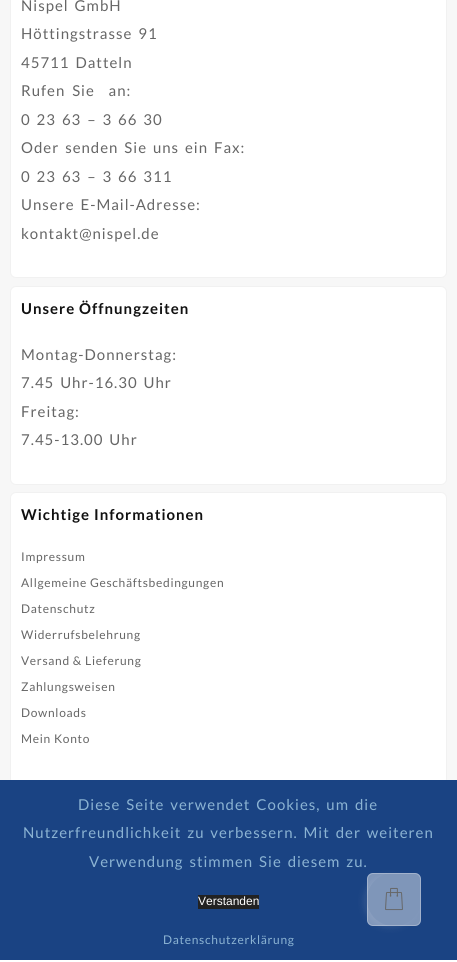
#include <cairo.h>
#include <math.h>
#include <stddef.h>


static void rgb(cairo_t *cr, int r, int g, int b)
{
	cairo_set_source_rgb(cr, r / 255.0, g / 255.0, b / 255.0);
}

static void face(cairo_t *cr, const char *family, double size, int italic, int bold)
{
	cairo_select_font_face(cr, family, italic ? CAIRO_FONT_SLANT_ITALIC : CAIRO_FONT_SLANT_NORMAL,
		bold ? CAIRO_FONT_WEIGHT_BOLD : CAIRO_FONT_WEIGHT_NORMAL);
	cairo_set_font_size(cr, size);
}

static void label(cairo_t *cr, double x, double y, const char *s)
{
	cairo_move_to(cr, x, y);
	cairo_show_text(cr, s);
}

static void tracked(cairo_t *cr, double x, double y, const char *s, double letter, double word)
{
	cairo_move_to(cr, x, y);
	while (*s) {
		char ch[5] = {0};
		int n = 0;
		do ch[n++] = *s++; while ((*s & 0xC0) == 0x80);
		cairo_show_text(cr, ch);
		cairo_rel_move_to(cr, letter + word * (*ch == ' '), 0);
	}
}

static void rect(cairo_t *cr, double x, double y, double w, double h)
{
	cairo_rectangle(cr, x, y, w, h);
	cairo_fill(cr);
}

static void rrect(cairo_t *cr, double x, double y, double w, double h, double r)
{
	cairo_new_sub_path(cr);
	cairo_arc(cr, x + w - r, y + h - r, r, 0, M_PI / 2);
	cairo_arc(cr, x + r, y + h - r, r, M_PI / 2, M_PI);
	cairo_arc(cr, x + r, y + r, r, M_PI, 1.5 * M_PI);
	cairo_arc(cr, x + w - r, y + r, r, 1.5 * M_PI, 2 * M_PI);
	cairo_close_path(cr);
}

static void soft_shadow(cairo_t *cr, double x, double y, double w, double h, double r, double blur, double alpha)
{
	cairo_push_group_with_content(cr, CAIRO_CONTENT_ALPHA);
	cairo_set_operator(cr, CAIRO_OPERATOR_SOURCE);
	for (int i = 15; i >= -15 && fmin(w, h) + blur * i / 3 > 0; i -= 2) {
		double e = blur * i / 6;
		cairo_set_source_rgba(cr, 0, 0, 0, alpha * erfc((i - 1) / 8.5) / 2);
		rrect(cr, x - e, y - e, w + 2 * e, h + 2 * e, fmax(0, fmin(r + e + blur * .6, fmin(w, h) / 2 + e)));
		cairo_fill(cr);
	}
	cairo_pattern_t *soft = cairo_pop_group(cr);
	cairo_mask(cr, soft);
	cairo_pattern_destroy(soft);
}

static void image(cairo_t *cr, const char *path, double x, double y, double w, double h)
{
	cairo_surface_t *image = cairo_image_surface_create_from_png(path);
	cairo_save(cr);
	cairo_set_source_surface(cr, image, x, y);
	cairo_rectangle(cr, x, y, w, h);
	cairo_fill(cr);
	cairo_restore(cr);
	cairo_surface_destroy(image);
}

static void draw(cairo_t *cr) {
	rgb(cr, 247, 247, 247);
	cairo_paint(cr);
	rgb(cr, 255, 255, 255);
	rrect(cr, 10.5, -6.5, 436, 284, 5.5);
	cairo_fill_preserve(cr);
	rgb(cr, 241, 241, 241);
	cairo_set_line_width(cr, 1);
	cairo_stroke(cr);
	face(cr, "Lato", 15, 0, 0);
	rgb(cr, 102, 102, 102);
	tracked(cr, 21, 11, "Nispel GmbH", 1, 2);
	tracked(cr, 21, 39, "Höttingstrasse 91", 1, 2);
	tracked(cr, 21, 68, "45711 Datteln", 1, 2);
	tracked(cr, 21, 96, "Rufen Sie  an:", 1, 3);
	tracked(cr, 21, 125, "0 23 63 – 3 66 30", 1, 2);
	tracked(cr, 21, 153, "Oder senden Sie uns ein Fax:", 1, 2);
	tracked(cr, 21, 182, "0 23 63 – 3 66 311", 1, 2);
	tracked(cr, 21, 210, "Unsere E-Mail-Adresse:", 1, 2);
	tracked(cr, 21, 239, "kontakt@nispel.de", 1, 0);
	rgb(cr, 255, 255, 255);
	rrect(cr, 10.5, 286.5, 436, 198, 5.5);
	cairo_fill_preserve(cr);
	rgb(cr, 241, 241, 241);
	cairo_stroke(cr);
	face(cr, "Lato", 15, 0, 1);
	rgb(cr, 17, 17, 17);
	tracked(cr, 21, 314, "Unsere Öffnungzeiten", 1, 0);
	face(cr, "Lato", 15, 0, 0);
	rgb(cr, 102, 102, 102);
	tracked(cr, 21, 360, "Montag-Donnerstag:", 1, 0);
	tracked(cr, 21, 388, "7.45 Uhr-16.30 Uhr", 1, 2);
	tracked(cr, 21, 417, "Freitag:", 1, 0);
	tracked(cr, 21, 445, "7.45-13.00 Uhr", 1, 2);
	rgb(cr, 255, 255, 255);
	rrect(cr, 10.5, 492.5, 436, 292, 5.5);
	cairo_fill_preserve(cr);
	rgb(cr, 241, 241, 241);
	cairo_stroke(cr);
	face(cr, "Lato", 15, 0, 1);
	rgb(cr, 17, 17, 17);
	tracked(cr, 21, 520, "Wichtige Informationen", 1, 0);
	face(cr, "Lato", 12, 0, 0);
	rgb(cr, 102, 102, 102);
	tracked(cr, 21, 561, "Impressum", 0.7, 0);
	tracked(cr, 21, 587, "Allgemeine Geschäftsbedingungen", 0.7, 0);
	tracked(cr, 21, 613, "Datenschutz", 0.7, 0);
	tracked(cr, 21, 639, "Widerrufsbelehrung", 0.7, 0);
	tracked(cr, 21, 665, "Versand & Lieferung", 0.7, 0);
	tracked(cr, 21, 691, "Zahlungsweisen", 0.7, 0);
	tracked(cr, 21, 717, "Downloads", 0.7, 0);
	tracked(cr, 21, 743, "Mein Konto", 0.7, 0);
	rgb(cr, 255, 255, 255);
	rect(cr, 0, 960, 457, 2);
	rgb(cr, 26, 67, 131);
	rect(cr, 0, 780, 457, 180);
	face(cr, "Lato", 15, 0, 0);
	rgb(cr, 139, 179, 211);
	tracked(cr, 78, 810, "Diese Seite verwendet Cookies, um die", 1, 2);
	tracked(cr, 23, 838, "Nutzerfreundlichkeit zu verbessern. Mit der weiteren", 1, 2);
	tracked(cr, 89, 867, "Verwendung stimmen Sie diesem zu.", 1, 2);
	rgb(cr, 34, 34, 34);
	rect(cr, 198, 895, 61, 14);
	face(cr, "Liberation Sans", 12, 0, 0);
	rgb(cr, 255, 255, 255);
	label(cr, 198, 905, "Verstanden");
	face(cr, "Lato", 12, 0, 0);
	rgb(cr, 139, 179, 211);
	tracked(cr, 163, 944, "Datenschutzerklärung", 0.7, 0);
	cairo_save(cr);
	cairo_set_fill_rule(cr, CAIRO_FILL_RULE_EVEN_ODD);
	cairo_new_path(cr);
	cairo_move_to(cr, 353, 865);
	cairo_line_to(cr, 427, 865);
	cairo_line_to(cr, 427, 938);
	cairo_line_to(cr, 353, 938);
	cairo_close_path(cr);
	cairo_move_to(cr, 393.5, 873);
	cairo_line_to(cr, 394.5, 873);
	cairo_curve_to(cr, 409, 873, 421, 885, 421, 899.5);
	cairo_curve_to(cr, 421, 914, 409, 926, 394.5, 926);
	cairo_line_to(cr, 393.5, 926);
	cairo_curve_to(cr, 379, 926, 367, 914, 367, 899.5);
	cairo_curve_to(cr, 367, 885, 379, 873, 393.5, 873);
	cairo_close_path(cr);
	cairo_clip(cr);
	rgb(cr, 221, 221, 221);
	soft_shadow(cr, 363, 875, 54, 53, 26.5, 3, 0.1);
	cairo_restore(cr);
	cairo_set_source_rgba(cr, 1, 1, 1, 0.44);
	rrect(cr, 367, 873, 54, 53, 6);
	cairo_fill(cr);
	rrect(cr, 367.5, 873.5, 53, 52, 5.5);
	cairo_set_source_rgba(cr, 1, 1, 1, 0.27);
	cairo_stroke(cr);
	image(cr, "image0.png", 385, 887, 18, 24);
}

int main(void) {
	cairo_surface_t *surface = cairo_image_surface_create(CAIRO_FORMAT_RGB24, 457, 962);
	cairo_t *cr = cairo_create(surface);
	cairo_font_options_t *options = cairo_font_options_create();
	cairo_font_options_set_hint_metrics(options, CAIRO_HINT_METRICS_OFF);
	cairo_font_options_set_hint_style(options, CAIRO_HINT_STYLE_NONE);
	cairo_set_font_options(cr, options);
	cairo_set_miter_limit(cr, 4);
	draw(cr);
	cairo_surface_write_to_png(surface, "render.png");
	cairo_font_options_destroy(options);
	cairo_destroy(cr);
	cairo_surface_destroy(surface);
	return 0;
}
